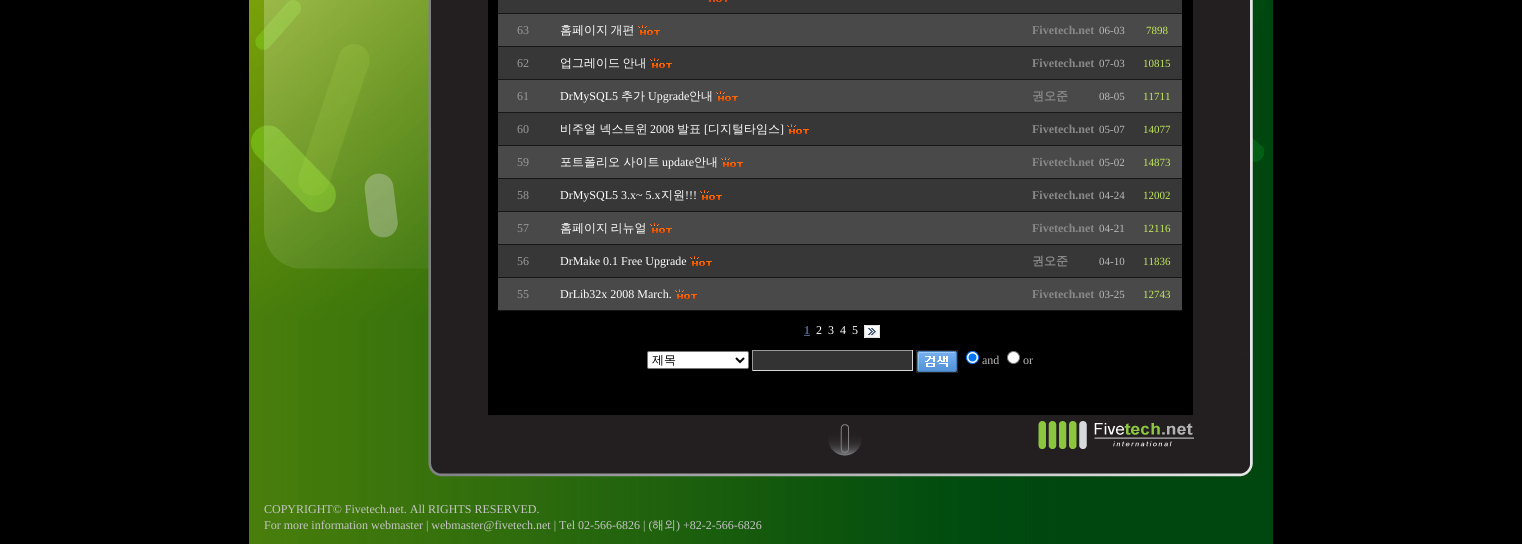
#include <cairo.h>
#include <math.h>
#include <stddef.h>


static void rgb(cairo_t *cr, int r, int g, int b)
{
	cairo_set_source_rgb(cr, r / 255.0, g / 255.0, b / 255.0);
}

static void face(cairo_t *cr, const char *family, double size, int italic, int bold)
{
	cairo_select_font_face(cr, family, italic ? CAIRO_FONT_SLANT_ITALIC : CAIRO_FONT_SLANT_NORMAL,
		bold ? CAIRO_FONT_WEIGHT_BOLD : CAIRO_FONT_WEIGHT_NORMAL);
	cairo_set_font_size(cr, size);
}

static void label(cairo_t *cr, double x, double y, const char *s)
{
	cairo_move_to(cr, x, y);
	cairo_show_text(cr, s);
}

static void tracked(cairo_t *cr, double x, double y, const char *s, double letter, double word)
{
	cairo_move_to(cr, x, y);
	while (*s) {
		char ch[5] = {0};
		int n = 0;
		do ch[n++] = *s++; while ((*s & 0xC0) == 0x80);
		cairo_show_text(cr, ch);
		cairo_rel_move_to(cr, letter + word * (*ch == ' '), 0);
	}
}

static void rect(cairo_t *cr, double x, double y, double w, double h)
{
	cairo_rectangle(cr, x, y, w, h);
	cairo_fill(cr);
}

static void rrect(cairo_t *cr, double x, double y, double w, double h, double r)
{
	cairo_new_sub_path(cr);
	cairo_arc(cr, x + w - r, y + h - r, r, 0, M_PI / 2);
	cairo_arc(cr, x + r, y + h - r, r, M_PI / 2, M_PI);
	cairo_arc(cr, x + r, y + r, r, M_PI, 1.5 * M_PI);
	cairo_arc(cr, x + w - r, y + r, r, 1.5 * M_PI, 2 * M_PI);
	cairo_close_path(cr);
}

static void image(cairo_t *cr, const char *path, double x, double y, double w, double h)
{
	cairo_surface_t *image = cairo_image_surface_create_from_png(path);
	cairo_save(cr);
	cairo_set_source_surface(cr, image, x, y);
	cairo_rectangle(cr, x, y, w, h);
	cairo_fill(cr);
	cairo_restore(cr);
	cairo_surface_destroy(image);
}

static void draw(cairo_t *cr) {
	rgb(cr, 0, 0, 0);
	cairo_paint(cr);
	image(cr, "image0.png", 249, 0, 1024, 544);
	image(cr, "image1.png", 249, 0, 1016, 319);
	image(cr, "image2.png", 428, 0, 60, 415);
	rgb(cr, 0, 0, 0);
	rect(cr, 488, 0, 705, 415);
	rgb(cr, 55, 55, 55);
	rect(cr, 498, 0, 684, 13);
	image(cr, "image3.png", 709, 0, 18, 2);
	rgb(cr, 23, 23, 23);
	rect(cr, 498, 13, 50, 1);
	rect(cr, 548, 13, 634, 1);
	rgb(cr, 73, 73, 73);
	rect(cr, 498, 14, 684, 32);
	rgb(cr, 23, 23, 23);
	rect(cr, 498, 46, 50, 1);
	face(cr, "Liberation Serif", 12, 0, 0);
	rgb(cr, 153, 153, 153);
	label(cr, 517, 34, "63");
	face(cr, "WenQuanYi Zen Hei Medium", 12, 0, 0);
	rgb(cr, 255, 255, 255);
	tracked(cr, 560, 34, "홈페이지 개편", 0, -1);
	image(cr, "image4.png", 638, 25, 22, 10);
	rgb(cr, 23, 23, 23);
	rect(cr, 548, 46, 634, 1);
	face(cr, "Liberation Serif", 12, 0, 1);
	rgb(cr, 136, 136, 136);
	label(cr, 1032, 34, "Fivetech.net");
	face(cr, "Liberation Serif", 11, 0, 0);
	rgb(cr, 186, 186, 186);
	label(cr, 1099, 34, "06-03");
	rgb(cr, 194, 232, 89);
	label(cr, 1146, 34, "7898");
	rgb(cr, 55, 55, 55);
	rect(cr, 498, 47, 684, 32);
	rgb(cr, 23, 23, 23);
	rect(cr, 498, 79, 50, 1);
	face(cr, "Liberation Serif", 12, 0, 0);
	rgb(cr, 153, 153, 153);
	label(cr, 517, 67, "62");
	face(cr, "WenQuanYi Zen Hei Medium", 12, 0, 0);
	rgb(cr, 255, 255, 255);
	tracked(cr, 560, 67, "업그레이드 안내", 0, -1);
	image(cr, "image5.png", 650, 58, 22, 10);
	rgb(cr, 23, 23, 23);
	rect(cr, 548, 79, 634, 1);
	face(cr, "Liberation Serif", 12, 0, 1);
	rgb(cr, 136, 136, 136);
	label(cr, 1032, 67, "Fivetech.net");
	face(cr, "Liberation Serif", 11, 0, 0);
	rgb(cr, 186, 186, 186);
	label(cr, 1099, 67, "07-03");
	rgb(cr, 194, 232, 89);
	label(cr, 1143, 67, "10815");
	rgb(cr, 73, 73, 73);
	rect(cr, 498, 80, 684, 32);
	rgb(cr, 23, 23, 23);
	rect(cr, 498, 112, 50, 1);
	face(cr, "Liberation Serif", 12, 0, 0);
	rgb(cr, 153, 153, 153);
	label(cr, 517, 100, "61");
	rgb(cr, 255, 255, 255);
	label(cr, 560, 100, "DrMySQL5");
	face(cr, "WenQuanYi Zen Hei Medium", 12, 0, 0);
	label(cr, 621, 100, "추가");
	face(cr, "Liberation Serif", 12, 0, 0);
	label(cr, 648, 100, "Upgrade");
	face(cr, "WenQuanYi Zen Hei Medium", 12, 0, 0);
	label(cr, 689, 100, "안내");
	image(cr, "image4.png", 716, 91, 22, 10);
	rgb(cr, 23, 23, 23);
	rect(cr, 548, 112, 634, 1);
	face(cr, "WenQuanYi Zen Hei", 12, 0, 1);
	rgb(cr, 136, 136, 136);
	label(cr, 1032, 100, "권오준");
	face(cr, "Liberation Serif", 11, 0, 0);
	rgb(cr, 186, 186, 186);
	label(cr, 1099, 100, "08-05");
	rgb(cr, 194, 232, 89);
	label(cr, 1143, 100, "11711");
	rgb(cr, 55, 55, 55);
	rect(cr, 498, 113, 684, 32);
	rgb(cr, 23, 23, 23);
	rect(cr, 498, 145, 50, 1);
	face(cr, "Liberation Serif", 12, 0, 0);
	rgb(cr, 153, 153, 153);
	label(cr, 517, 133, "60");
	face(cr, "WenQuanYi Zen Hei Medium", 12, 0, 0);
	rgb(cr, 255, 255, 255);
	label(cr, 560, 133, "비주얼 넥스트윈");
	face(cr, "Liberation Serif", 12, 0, 0);
	label(cr, 650, 133, "2008");
	face(cr, "WenQuanYi Zen Hei Medium", 12, 0, 0);
	label(cr, 677, 133, "발표");
	face(cr, "Liberation Serif", 12, 0, 0);
	label(cr, 704, 133, "[");
	face(cr, "WenQuanYi Zen Hei Medium", 12, 0, 0);
	label(cr, 708, 133, "디지털타임스");
	face(cr, "Liberation Serif", 12, 0, 0);
	label(cr, 780, 133, "]");
	image(cr, "image5.png", 787, 124, 22, 10);
	rgb(cr, 23, 23, 23);
	rect(cr, 548, 145, 634, 1);
	face(cr, "Liberation Serif", 12, 0, 1);
	rgb(cr, 136, 136, 136);
	label(cr, 1032, 133, "Fivetech.net");
	face(cr, "Liberation Serif", 11, 0, 0);
	rgb(cr, 186, 186, 186);
	label(cr, 1099, 133, "05-07");
	rgb(cr, 194, 232, 89);
	label(cr, 1143, 133, "14077");
	rgb(cr, 73, 73, 73);
	rect(cr, 498, 146, 684, 32);
	rgb(cr, 23, 23, 23);
	rect(cr, 498, 178, 50, 1);
	face(cr, "Liberation Serif", 12, 0, 0);
	rgb(cr, 153, 153, 153);
	label(cr, 517, 166, "59");
	face(cr, "WenQuanYi Zen Hei Medium", 12, 0, 0);
	rgb(cr, 255, 255, 255);
	label(cr, 560, 166, "포트폴리오 사이트");
	face(cr, "Liberation Serif", 12, 0, 0);
	label(cr, 662, 166, "update");
	face(cr, "WenQuanYi Zen Hei Medium", 12, 0, 0);
	label(cr, 694, 166, "안내");
	image(cr, "image4.png", 721, 157, 22, 10);
	rgb(cr, 23, 23, 23);
	rect(cr, 548, 178, 634, 1);
	face(cr, "Liberation Serif", 12, 0, 1);
	rgb(cr, 136, 136, 136);
	label(cr, 1032, 166, "Fivetech.net");
	face(cr, "Liberation Serif", 11, 0, 0);
	rgb(cr, 186, 186, 186);
	label(cr, 1099, 166, "05-02");
	rgb(cr, 194, 232, 89);
	label(cr, 1143, 166, "14873");
	rgb(cr, 55, 55, 55);
	rect(cr, 498, 179, 684, 32);
	rgb(cr, 23, 23, 23);
	rect(cr, 498, 211, 50, 1);
	face(cr, "Liberation Serif", 12, 0, 0);
	rgb(cr, 153, 153, 153);
	label(cr, 517, 199, "58");
	rgb(cr, 255, 255, 255);
	label(cr, 560, 199, "DrMySQL5 3.x~ 5.x");
	face(cr, "WenQuanYi Zen Hei Medium", 12, 0, 0);
	label(cr, 661, 199, "지원");
	face(cr, "Liberation Serif", 12, 0, 0);
	label(cr, 685, 199, "!!!");
	image(cr, "image5.png", 700, 190, 22, 10);
	rgb(cr, 23, 23, 23);
	rect(cr, 548, 211, 634, 1);
	face(cr, "Liberation Serif", 12, 0, 1);
	rgb(cr, 136, 136, 136);
	label(cr, 1032, 199, "Fivetech.net");
	face(cr, "Liberation Serif", 11, 0, 0);
	rgb(cr, 186, 186, 186);
	label(cr, 1099, 199, "04-24");
	rgb(cr, 194, 232, 89);
	label(cr, 1143, 199, "12002");
	rgb(cr, 73, 73, 73);
	rect(cr, 498, 212, 684, 32);
	rgb(cr, 23, 23, 23);
	rect(cr, 498, 244, 50, 1);
	face(cr, "Liberation Serif", 12, 0, 0);
	rgb(cr, 153, 153, 153);
	label(cr, 517, 232, "57");
	face(cr, "WenQuanYi Zen Hei Medium", 12, 0, 0);
	rgb(cr, 255, 255, 255);
	tracked(cr, 560, 232, "홈페이지 리뉴얼", 0, -1);
	image(cr, "image4.png", 650, 223, 22, 10);
	rgb(cr, 23, 23, 23);
	rect(cr, 548, 244, 634, 1);
	face(cr, "Liberation Serif", 12, 0, 1);
	rgb(cr, 136, 136, 136);
	label(cr, 1032, 232, "Fivetech.net");
	face(cr, "Liberation Serif", 11, 0, 0);
	rgb(cr, 186, 186, 186);
	label(cr, 1099, 232, "04-21");
	rgb(cr, 194, 232, 89);
	label(cr, 1143, 232, "12116");
	rgb(cr, 55, 55, 55);
	rect(cr, 498, 245, 684, 32);
	rgb(cr, 23, 23, 23);
	rect(cr, 498, 277, 50, 1);
	face(cr, "Liberation Serif", 12, 0, 0);
	rgb(cr, 153, 153, 153);
	label(cr, 517, 265, "56");
	rgb(cr, 255, 255, 255);
	label(cr, 560, 265, "DrMake 0.1 Free Upgrade");
	image(cr, "image5.png", 690, 256, 22, 10);
	rgb(cr, 23, 23, 23);
	rect(cr, 548, 277, 634, 1);
	face(cr, "WenQuanYi Zen Hei", 12, 0, 1);
	rgb(cr, 136, 136, 136);
	label(cr, 1032, 265, "권오준");
	face(cr, "Liberation Serif", 11, 0, 0);
	rgb(cr, 186, 186, 186);
	label(cr, 1099, 265, "04-10");
	rgb(cr, 194, 232, 89);
	label(cr, 1143, 265, "11836");
	rgb(cr, 73, 73, 73);
	rect(cr, 498, 278, 684, 32);
	rgb(cr, 23, 23, 23);
	rect(cr, 498, 310, 50, 1);
	face(cr, "Liberation Serif", 12, 0, 0);
	rgb(cr, 153, 153, 153);
	label(cr, 517, 298, "55");
	rgb(cr, 255, 255, 255);
	label(cr, 560, 298, "DrLib32x 2008 March.");
	image(cr, "image4.png", 675, 289, 22, 10);
	rgb(cr, 23, 23, 23);
	rect(cr, 548, 310, 634, 1);
	face(cr, "Liberation Serif", 12, 0, 1);
	rgb(cr, 136, 136, 136);
	label(cr, 1032, 298, "Fivetech.net");
	face(cr, "Liberation Serif", 11, 0, 0);
	rgb(cr, 186, 186, 186);
	label(cr, 1099, 298, "03-25");
	rgb(cr, 194, 232, 89);
	label(cr, 1143, 298, "12743");
	face(cr, "Liberation Serif", 12, 0, 1);
	rgb(cr, 77, 97, 133);
	label(cr, 804, 334, "1");
	rect(cr, 804, 335, 6, 1);
	face(cr, "Liberation Serif", 12, 0, 0);
	rgb(cr, 255, 255, 255);
	label(cr, 816, 334, "2");
	label(cr, 828, 334, "3");
	label(cr, 840, 334, "4");
	label(cr, 852, 334, "5");
	image(cr, "image6.png", 864, 325, 16, 13);
	rrect(cr, 647.5, 351.5, 101, 17, 1.5);
	cairo_fill_preserve(cr);
	rgb(cr, 118, 118, 118);
	cairo_set_line_width(cr, 1);
	cairo_stroke(cr);
	cairo_new_path(cr);
	cairo_move_to(cr, 736, 358);
	cairo_line_to(cr, 740, 362);
	cairo_line_to(cr, 744, 358);
	rgb(cr, 0, 0, 0);
	cairo_set_line_width(cr, 2);
	cairo_stroke(cr);
	face(cr, "WenQuanYi Zen Hei Medium", 12, 0, 0);
	label(cr, 652, 364, "제목");
	rgb(cr, 51, 51, 51);
	rect(cr, 753, 351, 159, 19);
	rgb(cr, 154, 154, 154);
	rect(cr, 752, 350, 161, 1);
	rgb(cr, 216, 216, 216);
	rect(cr, 912, 350, 1, 21);
	rect(cr, 752, 370, 161, 1);
	rgb(cr, 154, 154, 154);
	rect(cr, 752, 350, 1, 21);
	image(cr, "image7.png", 916, 350, 42, 23);
	rgb(cr, 255, 255, 255);
	cairo_arc(cr, 972.5, 357.5, 6, 0, 2 * M_PI);
	cairo_fill_preserve(cr);
	rgb(cr, 0, 117, 255);
	cairo_set_line_width(cr, 1);
	cairo_stroke(cr);
	cairo_arc(cr, 972.5, 357.5, 4, 0, 2 * M_PI);
	cairo_fill(cr);
	face(cr, "Liberation Serif", 12, 0, 0);
	rgb(cr, 186, 186, 186);
	label(cr, 982, 364, "and");
	rgb(cr, 255, 255, 255);
	cairo_new_path(cr);
	cairo_arc(cr, 1013.5, 357.5, 6, 0, 2 * M_PI);
	cairo_fill_preserve(cr);
	rgb(cr, 118, 118, 118);
	cairo_stroke(cr);
	rgb(cr, 186, 186, 186);
	label(cr, 1023, 364, "or");
	image(cr, "image8.png", 1193, 0, 60, 415);
	image(cr, "image9.png", 428, 415, 825, 62);
	rgb(cr, 197, 197, 197);
	label(cr, 264, 513, "COPYRIGHT© Fivetech.net. All RIGHTS RESERVED.");
	label(cr, 264, 529, "For more information webmaster | webmaster@fivetech.net | Tel 02-566-6826 | (");
	face(cr, "WenQuanYi Zen Hei Medium", 12, 0, 0);
	label(cr, 652, 529, "해외");
	face(cr, "Liberation Serif", 12, 0, 0);
	label(cr, 676, 529, ") +82-2-566-6826");
}

int main(void) {
	cairo_surface_t *surface = cairo_image_surface_create(CAIRO_FORMAT_RGB24, 1522, 544);
	cairo_t *cr = cairo_create(surface);
	cairo_font_options_t *options = cairo_font_options_create();
	cairo_font_options_set_hint_metrics(options, CAIRO_HINT_METRICS_OFF);
	cairo_font_options_set_hint_style(options, CAIRO_HINT_STYLE_NONE);
	cairo_set_font_options(cr, options);
	cairo_set_miter_limit(cr, 4);
	draw(cr);
	cairo_surface_write_to_png(surface, "render.png");
	cairo_font_options_destroy(options);
	cairo_destroy(cr);
	cairo_surface_destroy(surface);
	return 0;
}
